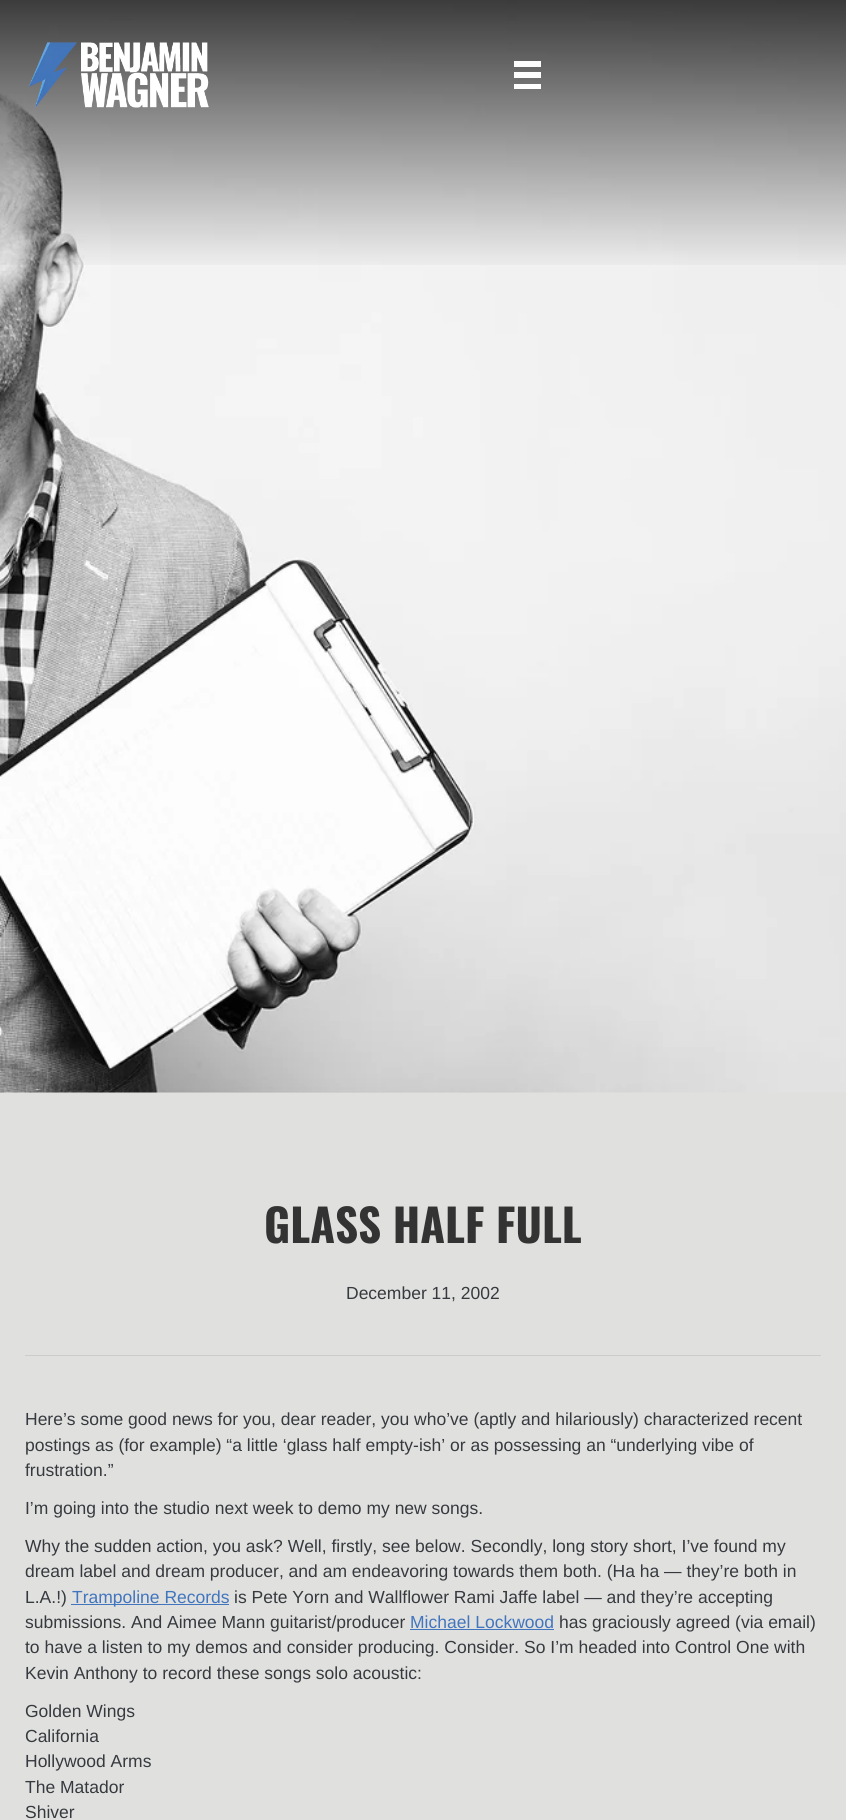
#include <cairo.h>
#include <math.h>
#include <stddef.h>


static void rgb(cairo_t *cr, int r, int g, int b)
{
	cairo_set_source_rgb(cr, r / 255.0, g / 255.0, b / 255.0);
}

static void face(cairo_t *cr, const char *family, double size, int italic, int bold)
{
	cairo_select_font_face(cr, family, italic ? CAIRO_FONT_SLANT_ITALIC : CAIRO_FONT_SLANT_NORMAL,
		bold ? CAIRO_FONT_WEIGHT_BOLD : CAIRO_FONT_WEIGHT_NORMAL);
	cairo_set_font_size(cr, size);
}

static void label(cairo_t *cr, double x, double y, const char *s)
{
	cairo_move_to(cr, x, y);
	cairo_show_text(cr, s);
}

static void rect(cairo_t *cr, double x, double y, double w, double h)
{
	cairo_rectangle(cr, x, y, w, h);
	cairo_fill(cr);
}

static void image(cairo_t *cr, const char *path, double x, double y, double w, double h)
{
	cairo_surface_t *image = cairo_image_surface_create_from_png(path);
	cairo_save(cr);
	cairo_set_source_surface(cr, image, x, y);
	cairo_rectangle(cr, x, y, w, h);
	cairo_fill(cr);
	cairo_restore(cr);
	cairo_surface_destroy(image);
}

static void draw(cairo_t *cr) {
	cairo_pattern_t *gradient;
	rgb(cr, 224, 224, 222);
	cairo_paint(cr);
	image(cr, "image1.png", 0, 0, 846, 1093);
	gradient = cairo_pattern_create_linear(423, 0, 423, 1093);
	cairo_pattern_add_color_stop_rgba(gradient, 0, 0, 0, 0, 0.75);
	cairo_pattern_add_color_stop_rgba(gradient, 0.25, 0, 0, 0, 0);
	cairo_set_source(cr, gradient);
	cairo_pattern_destroy(gradient);
	rect(cr, 0, 0, 846, 265);
	image(cr, "image0.png", 29, 42, 180, 66);
	rgb(cr, 254, 254, 254);
	rect(cr, 514, 61, 27, 6);
	rect(cr, 514, 72, 27, 6);
	rect(cr, 514, 84, 27, 5);
	face(cr, "Oswald", 45, 0, 1);
	rgb(cr, 51, 51, 51);
	label(cr, 264, 1243, "GLASS HALF FULL");
	face(cr, "Liberation Sans", 17.5, 0, 0);
	rgb(cr, 54, 58, 63);
	label(cr, 346, 1299, "December 11, 2002");
	rgb(cr, 204, 204, 204);
	rect(cr, 25, 1355, 796, 1);
	rgb(cr, 54, 58, 63);
	label(cr, 25, 1425, "Here’s some good news for you, dear reader, you who’ve (aptly and hilariously) characterized recent");
	label(cr, 25, 1451, "postings as (for example) “a little ‘glass half empty-ish’ or as possessing an “underlying vibe of");
	label(cr, 25, 1476, "frustration.”");
	label(cr, 25, 1514, "I’m going into the studio next week to demo my new songs.");
	label(cr, 25, 1552, "Why the sudden action, you ask? Well, firstly, see below. Secondly, long story short, I’ve found my");
	label(cr, 25, 1577, "dream label and dream producer, and am endeavoring towards them both. (Ha ha — they’re both in");
	label(cr, 25, 1603, "L.A.!)");
	rgb(cr, 65, 117, 190);
	rect(cr, 71, 1604, 158, 1);
	label(cr, 72, 1603, "Trampoline Records");
	rgb(cr, 54, 58, 63);
	label(cr, 234, 1603, "is Pete Yorn and Wallflower Rami Jaffe label — and they’re accepting");
	label(cr, 25, 1628, "submissions. And Aimee Mann guitarist/producer");
	rgb(cr, 65, 117, 190);
	label(cr, 410, 1628, "Michael Lockwood");
	rect(cr, 410, 1629, 144, 1);
	rgb(cr, 54, 58, 63);
	label(cr, 559, 1628, "has graciously agreed (via email)");
	label(cr, 25, 1653, "to have a listen to my demos and consider producing. Consider. So I’m headed into Control One with");
	label(cr, 25, 1679, "Kevin Anthony to record these songs solo acoustic:");
	label(cr, 25, 1717, "Golden Wings");
	label(cr, 25, 1742, "California");
	label(cr, 25, 1767, "Hollywood Arms");
	label(cr, 25, 1793, "The Matador");
	label(cr, 25, 1818, "Shiver");
}

int main(void) {
	cairo_surface_t *surface = cairo_image_surface_create(CAIRO_FORMAT_RGB24, 846, 1820);
	cairo_t *cr = cairo_create(surface);
	cairo_font_options_t *options = cairo_font_options_create();
	cairo_font_options_set_hint_metrics(options, CAIRO_HINT_METRICS_OFF);
	cairo_font_options_set_hint_style(options, CAIRO_HINT_STYLE_NONE);
	cairo_set_font_options(cr, options);
	cairo_set_miter_limit(cr, 4);
	draw(cr);
	cairo_surface_write_to_png(surface, "render.png");
	cairo_font_options_destroy(options);
	cairo_destroy(cr);
	cairo_surface_destroy(surface);
	return 0;
}
